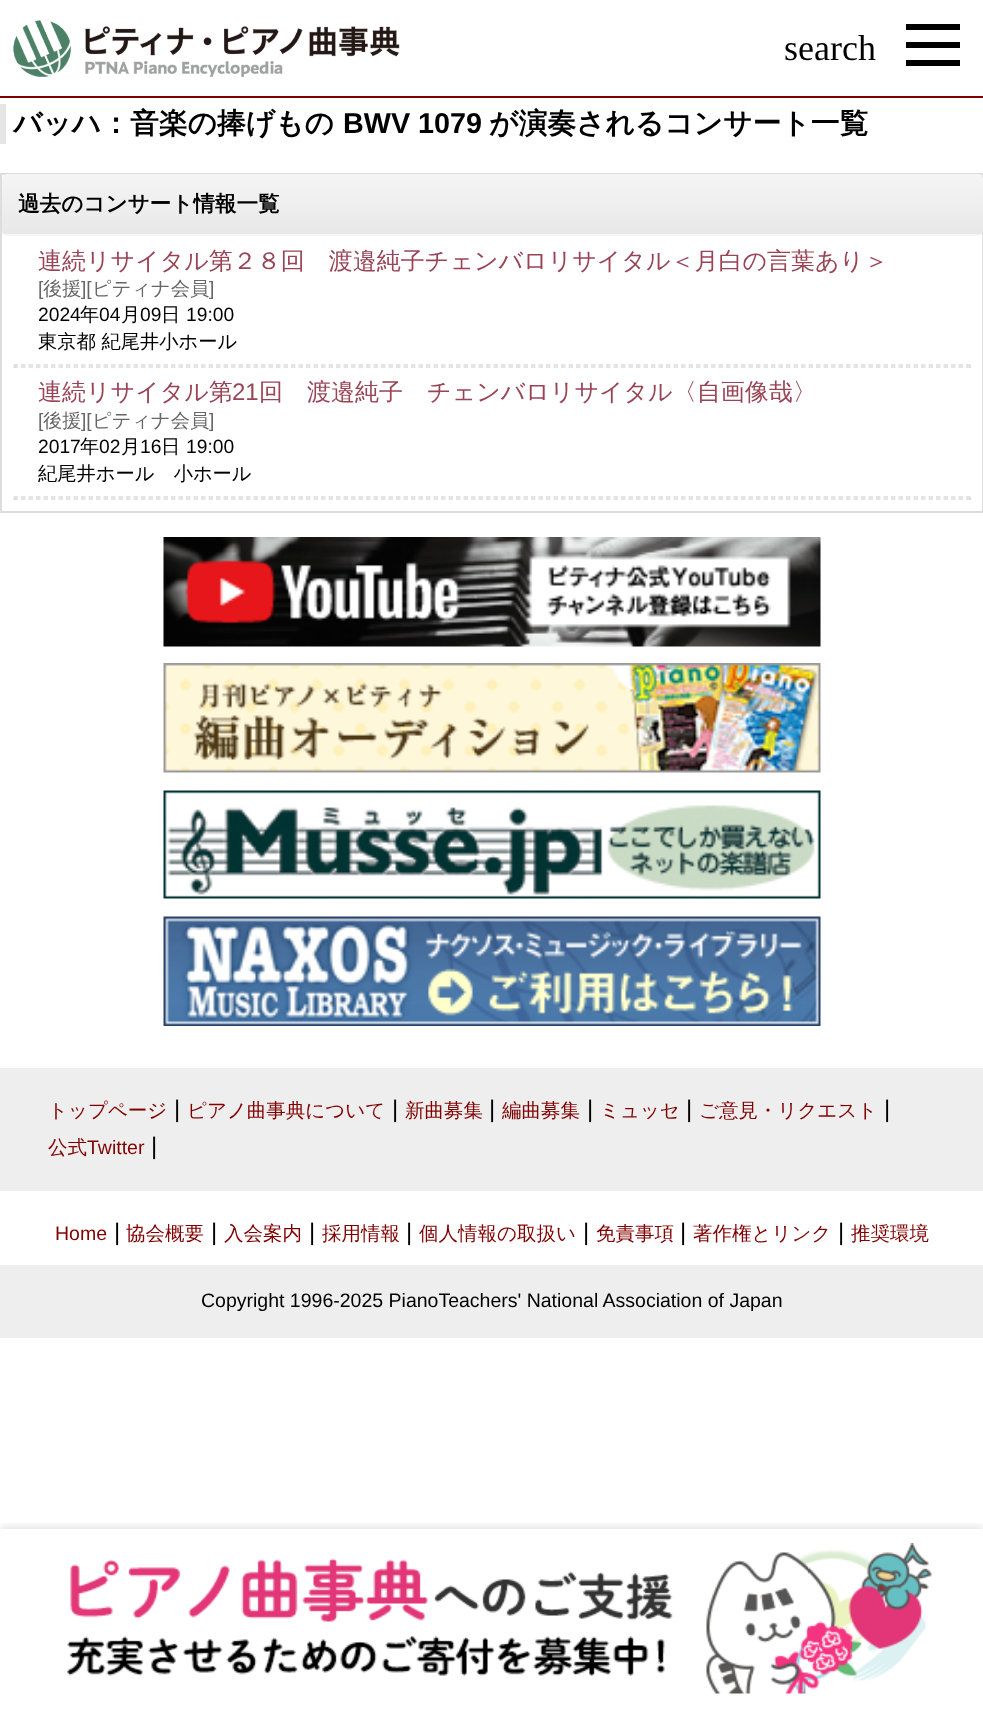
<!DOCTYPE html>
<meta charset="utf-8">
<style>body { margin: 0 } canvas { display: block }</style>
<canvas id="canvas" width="983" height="1714"></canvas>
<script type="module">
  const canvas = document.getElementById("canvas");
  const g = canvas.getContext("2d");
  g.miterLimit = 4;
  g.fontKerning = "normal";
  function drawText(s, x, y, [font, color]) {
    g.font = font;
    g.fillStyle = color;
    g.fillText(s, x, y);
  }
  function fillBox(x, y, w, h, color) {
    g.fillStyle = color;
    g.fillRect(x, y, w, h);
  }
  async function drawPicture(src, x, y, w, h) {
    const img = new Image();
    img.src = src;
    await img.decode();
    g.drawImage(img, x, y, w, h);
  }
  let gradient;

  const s1 = ["36px Liberation Serif", "#000000"];
  const s2 = ["bold 28.75px WenQuanYi Zen Hei", "#000000"];
  const s3 = ["bold 28.75px Liberation Sans", "#000000"];
  const s4 = ["bold 21.6px WenQuanYi Zen Hei", "#000000"];
  const s5 = ["500 24px WenQuanYi Zen Hei", "#994455"];
  const s6 = ["19.25px Liberation Sans", "#666666"];
  const s7 = ["500 19.25px WenQuanYi Zen Hei", "#666666"];
  const s8 = ["19.25px Liberation Sans", "#000000"];
  const s9 = ["500 19.25px WenQuanYi Zen Hei", "#000000"];
  const s10 = ["24px Liberation Sans", "#994455"];
  const s11 = ["500 19.5px WenQuanYi Zen Hei", "#800000"];
  const s12 = ["24px Liberation Sans", "#000000"];
  const s13 = ["19.5px Liberation Sans", "#800000"];
  const s14 = ["19.5px Liberation Sans", "#000000"];

  fillBox(0, 0, 983, 1714, "#FFFFFF");
  await drawPicture("pic1.png", 13, 20, 387, 57);
  drawText("search", 784, 60, s1);
  fillBox(0, 96, 983, 2, "#800000");
  fillBox(906, 24, 54, 6, "#000000");
  fillBox(906, 42, 54, 6, "#000000");
  fillBox(906, 60, 54, 6, "#000000");
  fillBox(0, 104, 6, 40, "#E5E5E5");
  drawText("バッハ：音楽の捧げもの", 13, 133, s2);
  drawText("BWV 1079", 343, 133, s3);
  drawText("が演奏されるコンサート一覧", 489, 133, s2);
  g.strokeStyle = "#DDDDDD";
  g.lineWidth = 2;
  g.strokeRect(1, 174, 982, 338);
  g.save();
  g.beginPath();
  g.roundRect(2, 174, 981, 62, 5);
  g.clip();
  gradient = g.createLinearGradient(492, 174, 492, 234);
  gradient.addColorStop(0, "#F5F5F5");
  gradient.addColorStop(1, "#E8E8E8");
  g.fillStyle = gradient;
  g.beginPath();
  g.roundRect(2, 174, 981, 60, [5, 5, 0, 0]);
  g.fill();
  gradient = g.createLinearGradient(492, 234, 492, 294);
  gradient.addColorStop(0, "#F5F5F5");
  gradient.addColorStop(1, "#E8E8E8");
  g.fillStyle = gradient;
  g.fillRect(2, 234, 981, 2);
  g.restore();
  drawText("過去のコンサート情報一覧", 18, 211, s4);
  drawText("連続リサイタル第２８回　渡邉純子チェンバロリサイタル＜月白の言葉あり＞", 38, 269, s5);
  drawText("[", 38, 295, s6);
  drawText("後援", 43, 295, s7);
  drawText("][", 81, 295, s6);
  drawText("ピティナ会員", 92, 295, s7);
  drawText("]", 209, 295, s6);
  drawText("2024", 38, 321, s8);
  drawText("年", 80, 321, s9);
  drawText("04", 99, 321, s8);
  drawText("月", 121, 321, s9);
  drawText("09", 140, 321, s8);
  drawText("日", 161, 321, s9);
  drawText("19:00", 186, 321, s8);
  drawText("東京都 紀尾井小ホール", 38, 348, s9);
  g.beginPath();
  g.moveTo(13.5, 365);
  g.lineTo(970.5, 365);
  g.lineWidth = 1.5;
  g.setLineDash([4.5, 3]);
  g.stroke();
  fillBox(969, 365, 2, 3, "#DDDDDD");
  g.beginPath();
  g.moveTo(13.5, 367);
  g.lineTo(970.5, 367);
  g.stroke();
  fillBox(14, 365, 2, 3, "#DDDDDD");
  drawText("連続リサイタル第", 38, 400, s5);
  drawText("21", 232, 400, s10);
  drawText("回　渡邉純子　チェンバロリサイタル〈自画像哉〉", 259, 400, s5);
  drawText("[", 38, 427, s6);
  drawText("後援", 43, 427, s7);
  drawText("][", 81, 427, s6);
  drawText("ピティナ会員", 92, 427, s7);
  drawText("]", 209, 427, s6);
  drawText("2017", 38, 453, s8);
  drawText("年", 80, 453, s9);
  drawText("02", 99, 453, s8);
  drawText("月", 121, 453, s9);
  drawText("16", 140, 453, s8);
  drawText("日", 161, 453, s9);
  drawText("19:00", 186, 453, s8);
  drawText("紀尾井ホール　小ホール", 38, 480, s9);
  g.beginPath();
  g.moveTo(13.5, 497);
  g.lineTo(970.5, 497);
  g.stroke();
  fillBox(969, 497, 2, 3, "#DDDDDD");
  g.beginPath();
  g.moveTo(13.5, 499);
  g.lineTo(970.5, 499);
  g.stroke();
  fillBox(14, 497, 2, 3, "#DDDDDD");
  await drawPicture("pic2.png", 163, 537, 658, 110);
  await drawPicture("pic3.png", 163, 663, 658, 110);
  await drawPicture("pic4.png", 163, 790, 658, 109);
  await drawPicture("pic5.png", 163, 916, 658, 110);
  fillBox(0, 1068, 983, 123, "#EEEEEE");
  drawText("トップページ", 48, 1117, s11);
  drawText("|", 174, 1117, s12);
  drawText("ピアノ曲事典について", 187, 1117, s11);
  drawText("|", 392, 1117, s12);
  drawText("新曲募集", 405, 1117, s11);
  drawText("|", 489, 1117, s12);
  drawText("編曲募集", 502, 1117, s11);
  drawText("|", 587, 1117, s12);
  drawText("ミュッセ", 600, 1117, s11);
  drawText("|", 686, 1117, s12);
  drawText("ご意見・リクエスト", 699, 1117, s11);
  drawText("|", 884, 1117, s12);
  drawText("公式", 48, 1154, s11);
  drawText("Twitter", 87, 1154, s13);
  drawText("|", 151, 1154, s12);
  drawText("Home", 55, 1240, s13);
  drawText("|", 114, 1240, s12);
  drawText("協会概要", 126, 1240, s11);
  drawText("|", 211, 1240, s12);
  drawText("入会案内", 224, 1240, s11);
  drawText("|", 309, 1240, s12);
  drawText("採用情報", 322, 1240, s11);
  drawText("|", 406, 1240, s12);
  drawText("個人情報の取扱い", 419, 1240, s11);
  drawText("|", 583, 1240, s12);
  drawText("免責事項", 596, 1240, s11);
  drawText("|", 680, 1240, s12);
  drawText("著作権とリンク", 693, 1240, s11);
  drawText("|", 838, 1240, s12);
  drawText("推奨環境", 851, 1240, s11);
  fillBox(0, 1265, 983, 73, "#EEEEEE");
  drawText("Copyright 1996-2025 PianoTeachers' National Association of Japan", 201, 1307, s14);
  g.save();
  g.beginPath();
  g.rect(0, 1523, 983, 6);
  g.clip();
  g.fillStyle = "rgba(0, 0, 0, 0.1)";
  g.filter = "blur(4px)";
  g.beginPath();
  g.rect(0, 1526, 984, 186);
  g.fill();
  g.filter = "none";
  g.restore();
  await drawPicture("pic6.png", 67, 1543, 865, 151);
</script>
